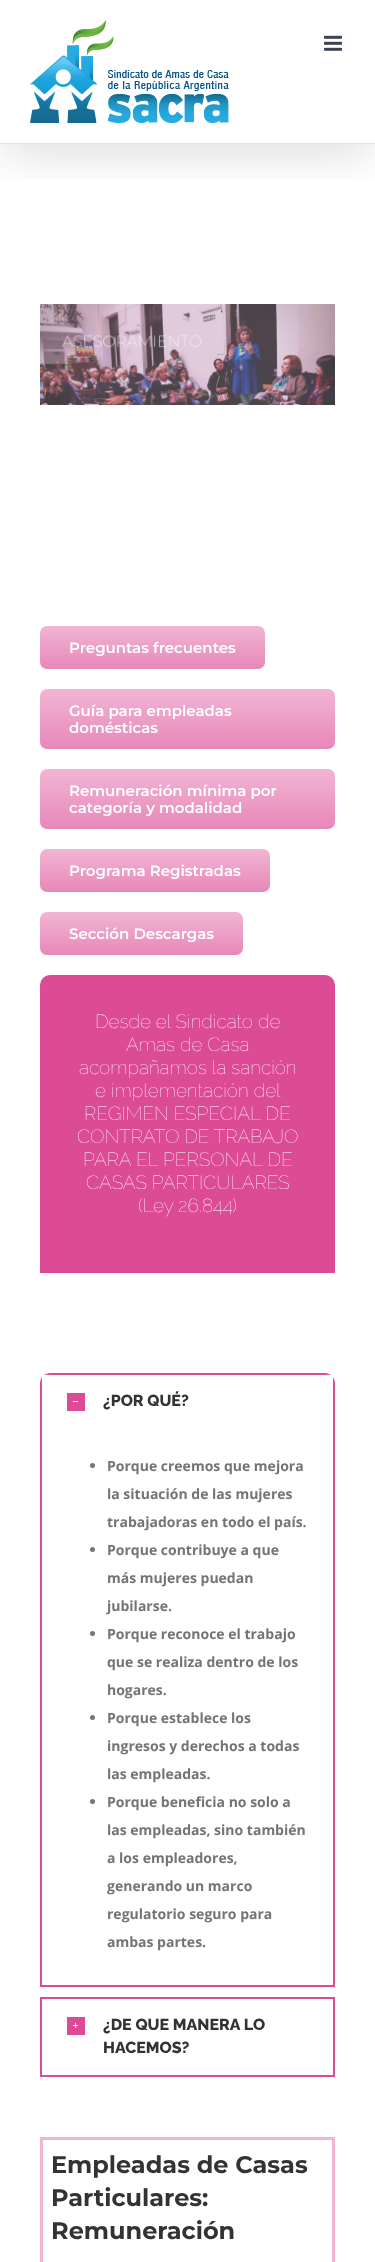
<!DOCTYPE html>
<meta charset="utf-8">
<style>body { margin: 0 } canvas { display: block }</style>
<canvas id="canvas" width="375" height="2262"></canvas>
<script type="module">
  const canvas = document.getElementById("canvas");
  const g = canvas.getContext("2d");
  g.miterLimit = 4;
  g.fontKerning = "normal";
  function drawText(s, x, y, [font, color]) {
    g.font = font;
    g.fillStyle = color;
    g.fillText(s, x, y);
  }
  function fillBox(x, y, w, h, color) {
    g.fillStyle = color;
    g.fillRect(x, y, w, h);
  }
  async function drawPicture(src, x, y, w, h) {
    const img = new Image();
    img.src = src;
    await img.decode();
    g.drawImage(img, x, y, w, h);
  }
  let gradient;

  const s1 = ["600 15px Montserrat", "#FFFFFF"];
  const s2 = ["100 19px Raleway", "#FFFFFF"];
  const s3 = ["800 16px Raleway", "#333333"];
  const s4 = ["bold 14px Open Sans", "#747474"];
  const s5 = ["bold 24px Montserrat", "#333333"];

  fillBox(0, 0, 375, 2262, "#FFFFFF");
  g.save();
  g.beginPath();
  g.rect(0, 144, 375, 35);
  g.clip();
  g.fillStyle = "rgba(0, 0, 0, 0.14)";
  g.filter = "blur(25px)";
  g.beginPath();
  g.rect(2, 12, 371, 140);
  g.fill();
  g.filter = "none";
  g.restore();
  fillBox(0, 143, 375, 1, "#E5E5E5");
  await drawPicture("pic1.png", 30, 20, 199, 103);
  await drawPicture("pic2.png", 324, 35, 18, 16);
  await drawPicture("pic3.png", 40, 304, 295, 101);
  gradient = g.createLinearGradient(153, 626, 153, 669);
  gradient.addColorStop(0, "#F1B6D4");
  gradient.addColorStop(1, "#E887B8");
  g.fillStyle = gradient;
  g.beginPath();
  g.roundRect(40, 626, 225, 43, 7);
  g.fill();
  drawText("Preguntas frecuentes", 69, 653, s1);
  gradient = g.createLinearGradient(188, 689, 188, 749);
  gradient.addColorStop(0, "#F1B6D4");
  gradient.addColorStop(1, "#E887B8");
  g.fillStyle = gradient;
  g.beginPath();
  g.roundRect(40, 689, 295, 60, 7);
  g.fill();
  drawText("Guía para empleadas", 69, 716, s1);
  drawText("domésticas", 69, 733, s1);
  gradient = g.createLinearGradient(188, 769, 188, 829);
  gradient.addColorStop(0, "#F1B6D4");
  gradient.addColorStop(1, "#E887B8");
  g.fillStyle = gradient;
  g.beginPath();
  g.roundRect(40, 769, 295, 60, 7);
  g.fill();
  drawText("Remuneración mínima por", 69, 796, s1);
  drawText("categoría y modalidad", 69, 813, s1);
  gradient = g.createLinearGradient(155, 849, 155, 892);
  gradient.addColorStop(0, "#F1B6D4");
  gradient.addColorStop(1, "#E887B8");
  g.fillStyle = gradient;
  g.beginPath();
  g.roundRect(40, 849, 230, 43, 7);
  g.fill();
  drawText("Programa Registradas", 69, 876, s1);
  gradient = g.createLinearGradient(142, 912, 142, 955);
  gradient.addColorStop(0, "#F1B6D4");
  gradient.addColorStop(1, "#E887B8");
  g.fillStyle = gradient;
  g.beginPath();
  g.roundRect(40, 912, 203, 43, 7);
  g.fill();
  drawText("Sección Descargas", 69, 939, s1);
  g.fillStyle = "#DC4B95";
  g.beginPath();
  g.roundRect(40, 975, 295, 298, [10, 10, 0, 0]);
  g.fill();
  drawText("Desde el Sindicato de", 95, 1028, s2);
  drawText("Amas de Casa", 126, 1051, s2);
  drawText("acompañamos la sanción", 79, 1074, s2);
  drawText("e implementación del", 95, 1097, s2);
  drawText("REGIMEN ESPECIAL DE", 84, 1120, s2);
  drawText("CONTRATO DE TRABAJO", 77, 1143, s2);
  drawText("PARA EL PERSONAL DE", 83, 1166, s2);
  drawText("CASAS PARTICULARES", 86, 1189, s2);
  drawText("(Ley 26.844)", 138, 1212, s2);
  g.fillStyle = "#DC4B95";
  g.beginPath();
  g.moveTo(40, 1383);
  g.lineTo(40, 1987);
  g.lineTo(335, 1987);
  g.lineTo(335, 1383);
  g.bezierCurveTo(335, 1381, 334, 1379, 333, 1377);
  g.lineTo(333, 1985);
  g.lineTo(42, 1985);
  g.lineTo(42, 1377);
  g.bezierCurveTo(41, 1379, 40, 1381, 40, 1383);
  g.closePath();
  g.moveTo(50, 1373);
  g.bezierCurveTo(48, 1373, 46, 1374, 44, 1375);
  g.lineTo(331, 1375);
  g.bezierCurveTo(329, 1374, 327, 1373, 325, 1373);
  g.closePath();
  g.fill("evenodd");
  fillBox(67, 1393, 18, 18, "#DC4B95");
  await drawPicture("pic4.png", 72, 1401, 7, 1);
  drawText("¿POR QUÉ?", 103, 1406, s3);
  g.fillStyle = "#747474";
  g.beginPath();
  g.arc(92.5, 1465.5, 2.5, 0, Math.PI * 2);
  g.fill();
  drawText("Porque creemos que mejora", 107, 1471, s4);
  drawText("la situación de las mujeres", 107, 1499, s4);
  drawText("trabajadoras en todo el país.", 107, 1527, s4);
  g.beginPath();
  g.arc(92.5, 1549.5, 2.5, 0, Math.PI * 2);
  g.fill();
  drawText("Porque contribuye a que", 107, 1555, s4);
  drawText("más mujeres puedan", 107, 1583, s4);
  drawText("jubilarse.", 107, 1611, s4);
  g.beginPath();
  g.arc(92.5, 1633.5, 2.5, 0, Math.PI * 2);
  g.fill();
  drawText("Porque reconoce el trabajo", 107, 1639, s4);
  drawText("que se realiza dentro de los", 107, 1667, s4);
  drawText("hogares.", 107, 1695, s4);
  g.beginPath();
  g.arc(92.5, 1717.5, 2.5, 0, Math.PI * 2);
  g.fill();
  drawText("Porque establece los", 107, 1723, s4);
  drawText("ingresos y derechos a todas", 107, 1751, s4);
  drawText("las empleadas.", 107, 1779, s4);
  g.beginPath();
  g.arc(92.5, 1801.5, 2.5, 0, Math.PI * 2);
  g.fill();
  drawText("Porque beneficia no solo a", 107, 1807, s4);
  drawText("las empleadas, sino también", 107, 1835, s4);
  drawText("a los empleadores,", 107, 1863, s4);
  drawText("generando un marco", 107, 1891, s4);
  drawText("regulatorio seguro para", 107, 1919, s4);
  drawText("ambas partes.", 107, 1947, s4);
  g.strokeStyle = "#DC4B95";
  g.lineWidth = 2;
  g.strokeRect(41, 1998, 293, 78);
  fillBox(67, 2017, 18, 18, "#DC4B95");
  await drawPicture("pic5.png", 72, 2022, 7, 7);
  drawText("¿DE QUE MANERA LO", 103, 2030, s3);
  drawText("HACEMOS?", 103, 2053, s3);
  g.strokeStyle = "#F1B6D4";
  g.lineWidth = 3;
  g.strokeRect(41.5, 2138.5, 292, 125);
  drawText("Empleadas de Casas", 51, 2173, s5);
  drawText("Particulares:", 51, 2206, s5);
  drawText("Remuneración", 51, 2239, s5);
</script>
